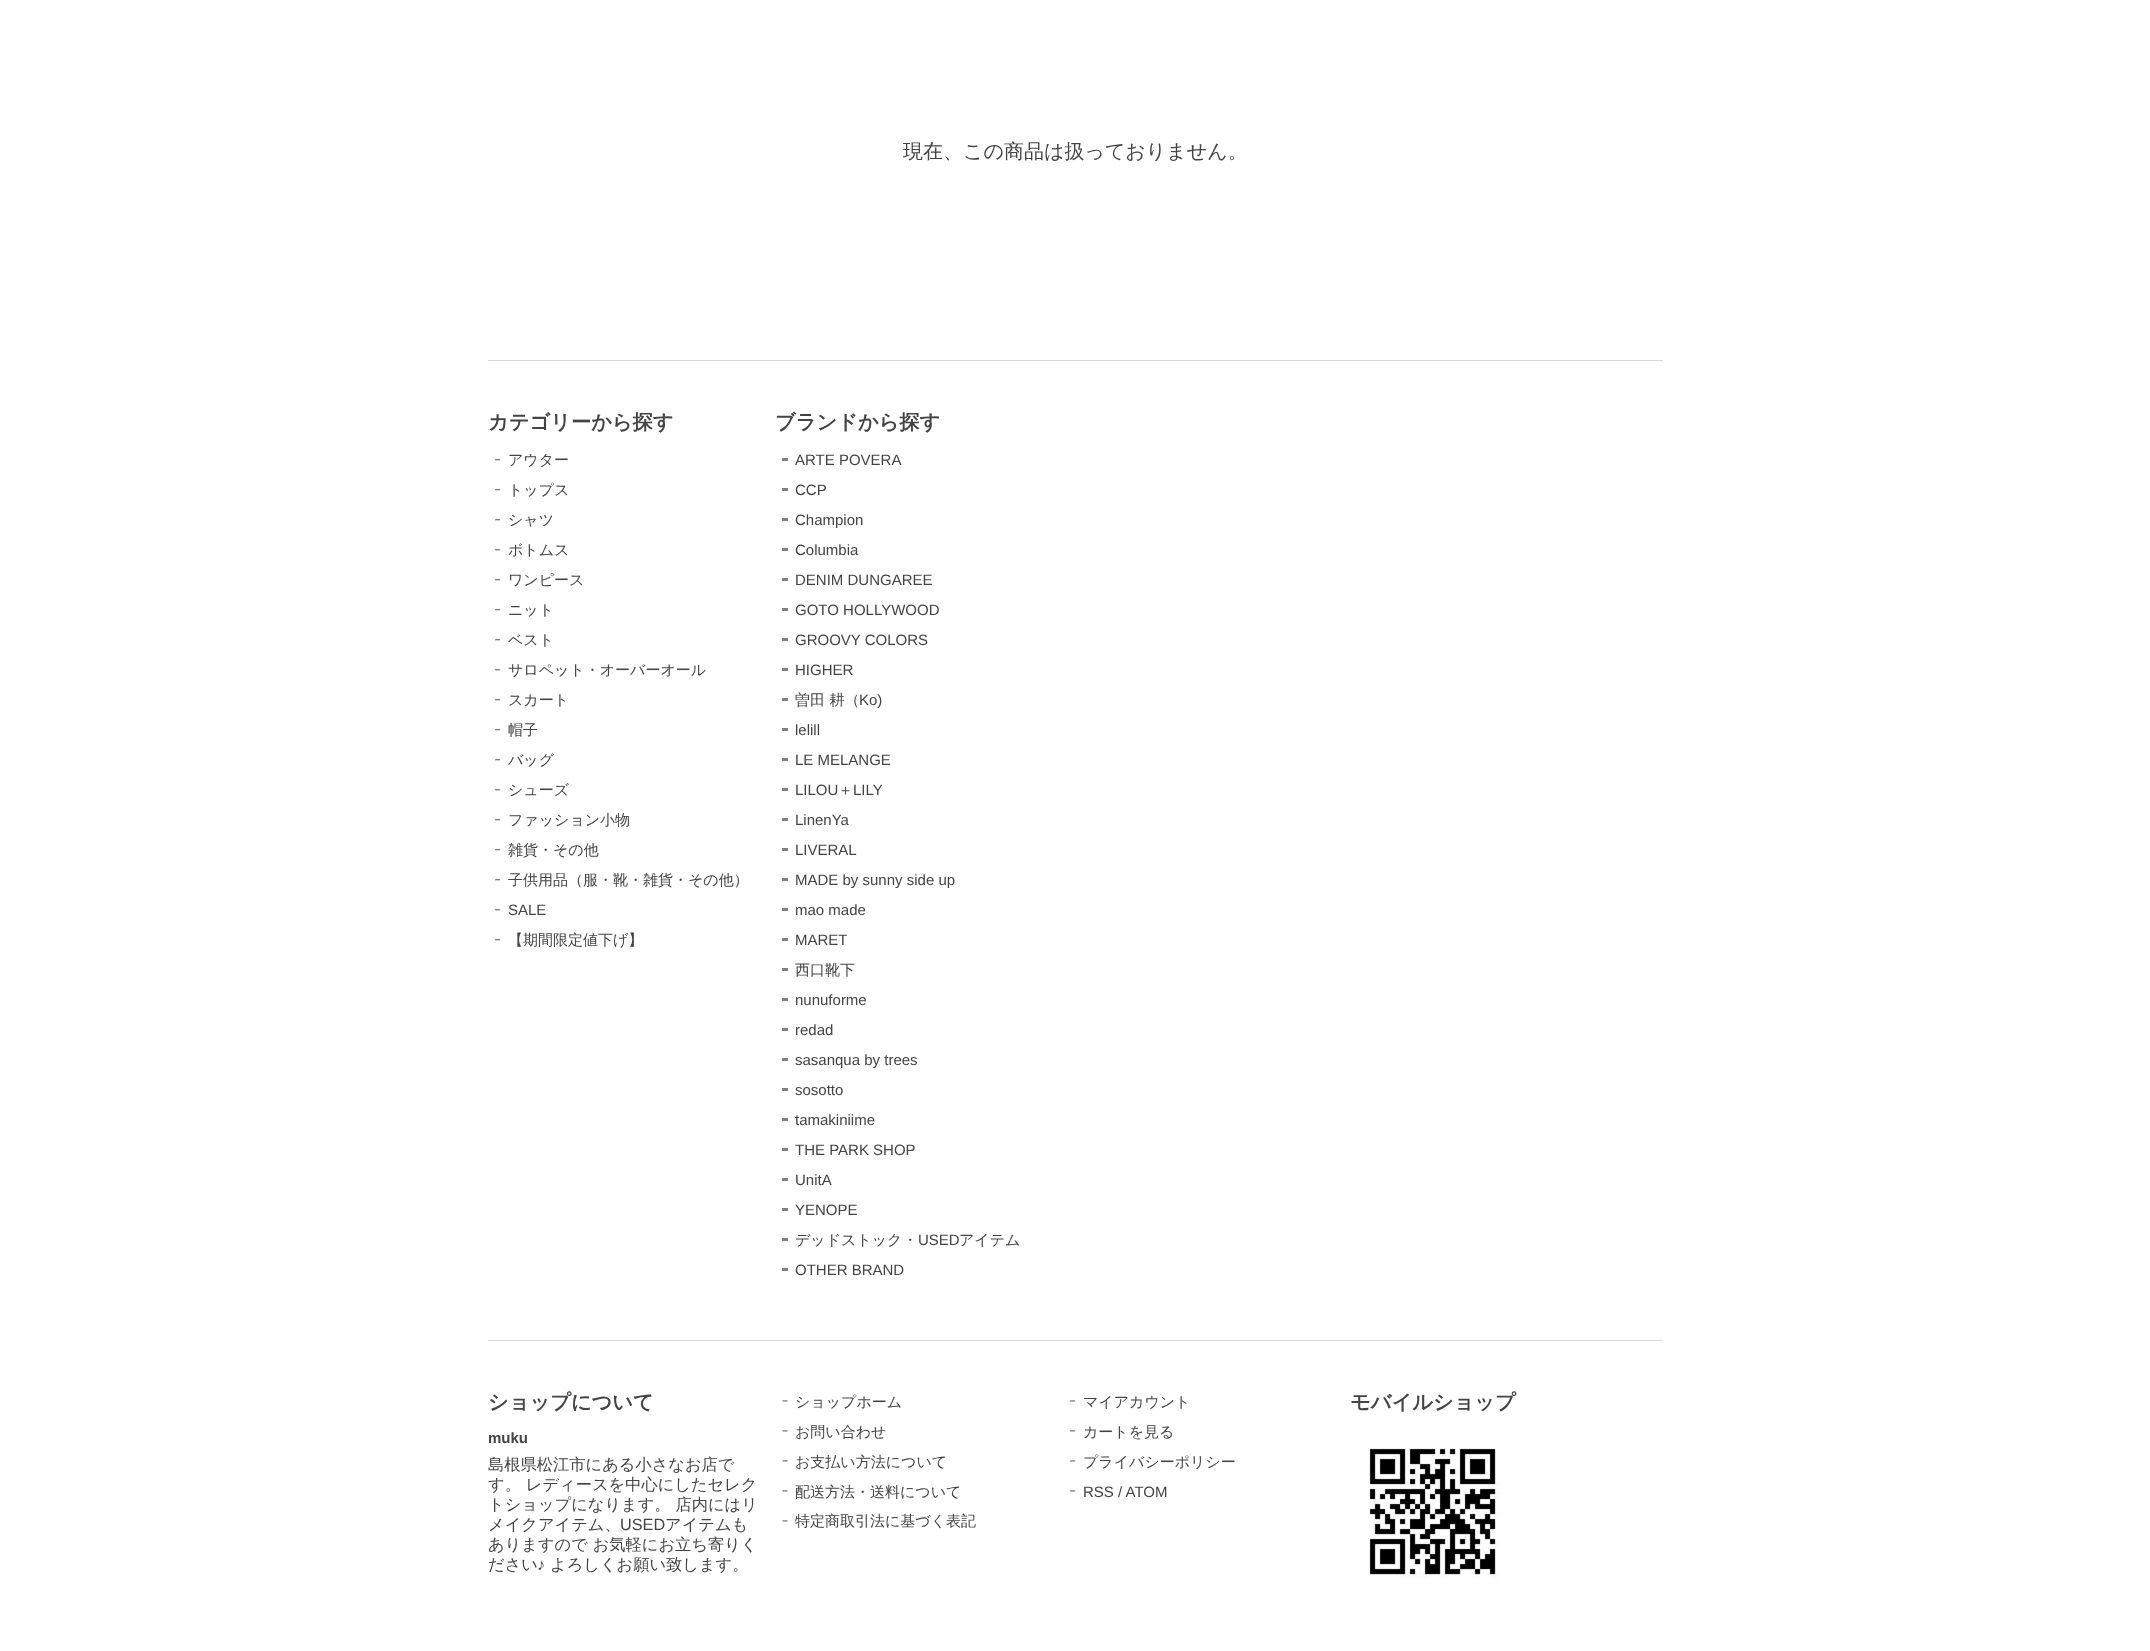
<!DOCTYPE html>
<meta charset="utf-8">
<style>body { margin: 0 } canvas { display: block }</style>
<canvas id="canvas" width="2150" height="1651"></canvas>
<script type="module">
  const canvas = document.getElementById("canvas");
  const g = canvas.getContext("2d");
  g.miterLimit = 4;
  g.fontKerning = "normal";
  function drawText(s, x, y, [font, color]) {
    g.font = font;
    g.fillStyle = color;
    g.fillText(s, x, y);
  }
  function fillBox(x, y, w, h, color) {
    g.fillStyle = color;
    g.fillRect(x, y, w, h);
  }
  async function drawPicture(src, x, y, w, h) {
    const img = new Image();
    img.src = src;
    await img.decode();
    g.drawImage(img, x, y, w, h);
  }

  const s1 = ["500 20px WenQuanYi Zen Hei", "#444444"];
  const s2 = ["bold 20.25px WenQuanYi Zen Hei", "#444444"];
  const s3 = ["500 15px WenQuanYi Zen Hei", "#444444"];
  const s4 = ["15px Liberation Sans", "#444444"];
  const s5 = ["bold 15px Liberation Sans", "#444444"];
  const s6 = ["500 16.25px WenQuanYi Zen Hei", "#444444"];
  const s7 = ["16.25px Liberation Sans", "#444444"];

  fillBox(0, 0, 2150, 1651, "#FFFFFF");
  drawText("現在、この商品は扱っておりません。", 903, 158, s1);
  fillBox(488, 360, 1175, 1, "#D8D8D8");
  drawText("カテゴリーから探す", 488, 429, s2);
  await drawPicture("pic1.png", 494, 458, 7, 3);
  drawText("アウター", 508, 465, s3);
  await drawPicture("pic1.png", 494, 488, 7, 3);
  drawText("トップス", 508, 495, s3);
  await drawPicture("pic1.png", 494, 518, 7, 3);
  drawText("シャツ", 508, 525, s3);
  await drawPicture("pic1.png", 494, 548, 7, 3);
  drawText("ボトムス", 508, 555, s3);
  await drawPicture("pic1.png", 494, 578, 7, 3);
  drawText("ワンピース", 508, 585, s3);
  await drawPicture("pic1.png", 494, 608, 7, 3);
  drawText("ニット", 508, 615, s3);
  await drawPicture("pic1.png", 494, 638, 7, 3);
  drawText("ベスト", 508, 645, s3);
  await drawPicture("pic1.png", 494, 668, 7, 3);
  drawText("サロペット・オーバーオール", 508, 675, s3);
  await drawPicture("pic1.png", 494, 698, 7, 3);
  drawText("スカート", 508, 705, s3);
  await drawPicture("pic1.png", 494, 728, 7, 3);
  drawText("帽子", 508, 735, s3);
  await drawPicture("pic1.png", 494, 758, 7, 3);
  drawText("バッグ", 508, 765, s3);
  await drawPicture("pic1.png", 494, 788, 7, 3);
  drawText("シューズ", 508, 795, s3);
  await drawPicture("pic1.png", 494, 818, 7, 3);
  drawText("ファッション小物", 508, 825, s3);
  await drawPicture("pic1.png", 494, 848, 7, 3);
  drawText("雑貨・その他", 508, 855, s3);
  await drawPicture("pic1.png", 494, 878, 7, 3);
  drawText("子供用品（服・靴・雑貨・その他）", 508, 885, s3);
  await drawPicture("pic1.png", 494, 908, 7, 3);
  drawText("SALE", 508, 915, s4);
  await drawPicture("pic1.png", 494, 938, 7, 3);
  drawText("【期間限定値下げ】", 508, 945, s3);
  drawText("ブランドから探す", 775, 429, s2);
  fillBox(782, 458, 6, 3, "#808080");
  drawText("ARTE POVERA", 795, 465, s4);
  fillBox(782, 488, 6, 3, "#808080");
  drawText("CCP", 795, 495, s4);
  fillBox(782, 518, 6, 3, "#808080");
  drawText("Champion", 795, 525, s4);
  fillBox(782, 548, 6, 3, "#808080");
  drawText("Columbia", 795, 555, s4);
  fillBox(782, 578, 6, 3, "#808080");
  drawText("DENIM DUNGAREE", 795, 585, s4);
  fillBox(782, 608, 6, 3, "#808080");
  drawText("GOTO HOLLYWOOD", 795, 615, s4);
  fillBox(782, 638, 6, 3, "#808080");
  drawText("GROOVY COLORS", 795, 645, s4);
  fillBox(782, 668, 6, 3, "#808080");
  drawText("HIGHER", 795, 675, s4);
  fillBox(782, 698, 6, 3, "#808080");
  drawText("曽田 耕（", 795, 705, s3);
  drawText("Ko)", 859, 705, s4);
  fillBox(782, 728, 6, 3, "#808080");
  drawText("lelill", 795, 735, s4);
  fillBox(782, 758, 6, 3, "#808080");
  drawText("LE MELANGE", 795, 765, s4);
  fillBox(782, 788, 6, 3, "#808080");
  drawText("LILOU", 795, 795, s4);
  drawText("＋", 838, 795, s3);
  drawText("LILY", 853, 795, s4);
  fillBox(782, 818, 6, 3, "#808080");
  drawText("LinenYa", 795, 825, s4);
  fillBox(782, 848, 6, 3, "#808080");
  drawText("LIVERAL", 795, 855, s4);
  fillBox(782, 878, 6, 3, "#808080");
  drawText("MADE by sunny side up", 795, 885, s4);
  fillBox(782, 908, 6, 3, "#808080");
  drawText("mao made", 795, 915, s4);
  fillBox(782, 938, 6, 3, "#808080");
  drawText("MARET", 795, 945, s4);
  fillBox(782, 968, 6, 3, "#808080");
  drawText("西口靴下", 795, 975, s3);
  fillBox(782, 998, 6, 3, "#808080");
  drawText("nunuforme", 795, 1005, s4);
  fillBox(782, 1028, 6, 3, "#808080");
  drawText("redad", 795, 1035, s4);
  fillBox(782, 1058, 6, 3, "#808080");
  drawText("sasanqua by trees", 795, 1065, s4);
  fillBox(782, 1088, 6, 3, "#808080");
  drawText("sosotto", 795, 1095, s4);
  fillBox(782, 1118, 6, 3, "#808080");
  drawText("tamakiniime", 795, 1125, s4);
  fillBox(782, 1148, 6, 3, "#808080");
  drawText("THE PARK SHOP", 795, 1155, s4);
  fillBox(782, 1178, 6, 3, "#808080");
  drawText("UnitA", 795, 1185, s4);
  fillBox(782, 1208, 6, 3, "#808080");
  drawText("YENOPE", 795, 1215, s4);
  fillBox(782, 1238, 6, 3, "#808080");
  drawText("デッドストック・", 795, 1245, s3);
  drawText("USED", 918, 1245, s4);
  drawText("アイテム", 959, 1245, s3);
  fillBox(782, 1268, 6, 3, "#808080");
  drawText("OTHER BRAND", 795, 1275, s4);
  fillBox(488, 1340, 1175, 1, "#D8D8D8");
  drawText("ショップについて", 488, 1409, s2);
  drawText("muku", 488, 1443, s5);
  drawText("島根県松江市にある小さなお店で", 488, 1470, s6);
  drawText("す。 レディースを中心にしたセレク", 488, 1490, s6);
  drawText("トショップになります。 店内にはリ", 488, 1510, s6);
  drawText("メイクアイテム、", 488, 1530, s6);
  drawText("USED", 620, 1530, s7);
  drawText("アイテムも", 665, 1530, s6);
  drawText("ありますので お気軽にお立ち寄りく", 488, 1550, s6);
  drawText("ださい", 488, 1570, s6);
  drawText("♪", 537, 1570, s7);
  drawText("よろしくお願い致します。", 550, 1570, s6);
  await drawPicture("pic2.png", 782, 1400, 6, 2);
  drawText("ショップホーム", 795, 1407, s3);
  await drawPicture("pic2.png", 782, 1430, 6, 2);
  drawText("お問い合わせ", 795, 1437, s3);
  await drawPicture("pic2.png", 782, 1460, 6, 2);
  drawText("お支払い方法について", 795, 1467, s3);
  await drawPicture("pic2.png", 782, 1490, 6, 2);
  drawText("配送方法・送料について", 795, 1497, s3);
  await drawPicture("pic2.png", 782, 1520, 6, 2);
  drawText("特定商取引法に基づく表記", 795, 1526, s3);
  await drawPicture("pic3.png", 1069, 1400, 7, 2);
  drawText("マイアカウント", 1083, 1407, s3);
  await drawPicture("pic3.png", 1069, 1430, 7, 2);
  drawText("カートを見る", 1083, 1437, s3);
  await drawPicture("pic3.png", 1069, 1460, 7, 2);
  drawText("プライバシーポリシー", 1083, 1467, s3);
  await drawPicture("pic3.png", 1069, 1490, 7, 2);
  drawText("RSS / ATOM", 1083, 1497, s4);
  drawText("モバイルショップ", 1350, 1409, s2);
  await drawPicture("pic4.png", 1369, 1448, 131, 131);
</script>
